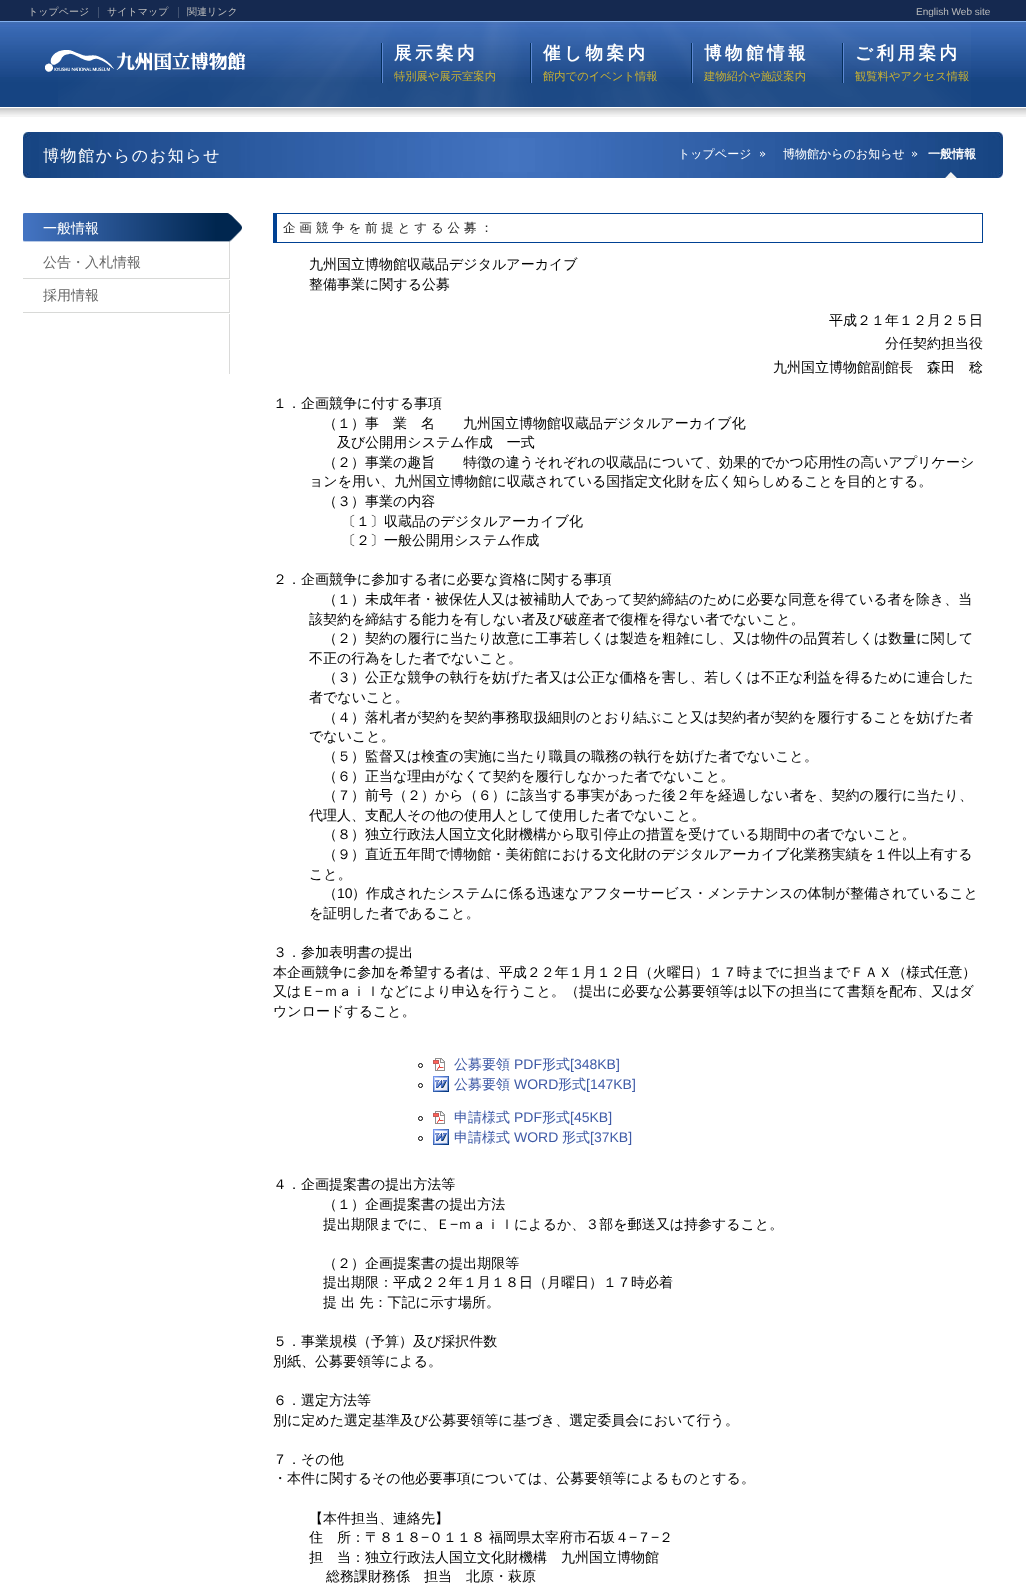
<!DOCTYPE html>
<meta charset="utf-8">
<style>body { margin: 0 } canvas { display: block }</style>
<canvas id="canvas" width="1026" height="1591"></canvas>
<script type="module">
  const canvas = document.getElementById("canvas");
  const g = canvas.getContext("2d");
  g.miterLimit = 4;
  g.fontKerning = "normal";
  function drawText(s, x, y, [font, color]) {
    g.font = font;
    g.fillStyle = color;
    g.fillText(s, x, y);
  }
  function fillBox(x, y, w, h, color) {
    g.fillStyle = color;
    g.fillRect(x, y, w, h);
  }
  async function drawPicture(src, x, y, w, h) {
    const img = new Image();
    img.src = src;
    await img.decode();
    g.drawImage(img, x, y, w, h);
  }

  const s1 = ["500 10px WenQuanYi Zen Hei", "#BCBCBC"];
  const s2 = ["10px Liberation Sans", "#BCBCBC"];
  const s3 = ["bold 17.5px WenQuanYi Zen Hei", "#FFFFFF"];
  const s4 = ["500 11.3px WenQuanYi Zen Hei", "#C5AF34"];
  const s5 = ["500 16px WenQuanYi Zen Hei", "#FFFFFF"];
  const s6 = ["500 12px WenQuanYi Zen Hei", "#FFFFFF"];
  const s7 = ["bold 12px WenQuanYi Zen Hei", "#FFFFFF"];
  const s8 = ["500 14px WenQuanYi Zen Hei", "#FFFFFF"];
  const s9 = ["500 14px WenQuanYi Zen Hei", "#666666"];
  const s10 = ["500 12.6px WenQuanYi Zen Hei", "#262626"];
  const s11 = ["500 14px WenQuanYi Zen Hei", "#000000"];
  const s12 = ["14px Liberation Sans", "#000000"];
  const s13 = ["500 14px WenQuanYi Zen Hei", "#3E5AA6"];
  const s14 = ["14px Liberation Sans", "#3E5AA6"];

  fillBox(0, 0, 1026, 1591, "#FFFFFF");
  fillBox(0, 0, 1026, 21, "#152950");
  drawText("トップページ", 28, 15, s1);
  fillBox(98, 7, 1, 11, "#415271");
  drawText("サイトマップ", 107, 15, s1);
  fillBox(178, 7, 1, 11, "#415271");
  drawText("関連リンク", 187, 15, s1);
  drawText("English Web site", 916, 15, s2);
  await drawPicture("pic1.png", 0, 21, 1026, 86);
  await drawPicture("pic2.png", 58, 21, 913, 86);
  await drawPicture("pic3.png", 45, 50, 200, 22);
  await drawPicture("pic4.png", 381, 43, 2, 40);
  g.letterSpacing = "3.5px";
  drawText("展示案内", 394, 59, s3);
  g.letterSpacing = "0px";
  drawText("特別展や展示室案内", 394, 80, s4);
  await drawPicture("pic4.png", 530, 43, 2, 40);
  g.letterSpacing = "3.5px";
  drawText("催し物案内", 543, 59, s3);
  g.letterSpacing = "0px";
  drawText("館内でのイベント情報", 543, 80, s4);
  await drawPicture("pic4.png", 691, 43, 2, 40);
  g.letterSpacing = "3.5px";
  drawText("博物館情報", 704, 59, s3);
  g.letterSpacing = "0px";
  drawText("建物紹介や施設案内", 704, 80, s4);
  await drawPicture("pic4.png", 842, 43, 2, 40);
  g.letterSpacing = "3.5px";
  drawText("ご利用案内", 855, 59, s3);
  g.letterSpacing = "0px";
  drawText("観覧料やアクセス情報", 855, 80, s4);
  await drawPicture("pic5.png", 0, 108, 1026, 9);
  await drawPicture("pic6.png", 23, 138, 980, 34);
  await drawPicture("pic7.png", 23, 132, 980, 6);
  await drawPicture("pic8.png", 23, 172, 980, 6);
  g.letterSpacing = "1.6px";
  drawText("博物館からのお知らせ", 43, 161, s5);
  g.letterSpacing = "0px";
  drawText("トップページ", 678, 158, s6);
  await drawPicture("pic9.png", 760, 151, 6, 6);
  drawText("博物館からのお知らせ", 783, 158, s6);
  await drawPicture("pic10.png", 912, 151, 6, 6);
  drawText("一般情報", 928, 158, s7);
  await drawPicture("pic11.png", 945, 172, 12, 6);
  fillBox(229, 241, 1, 133, "#DADAD9");
  await drawPicture("pic12.png", 23, 213, 219, 29);
  drawText("一般情報", 43, 233, s8);
  await drawPicture("pic13.png", 23, 278, 207, 2);
  drawText("公告・入札情報", 43, 267, s9);
  await drawPicture("pic13.png", 23, 312, 207, 2);
  drawText("採用情報", 43, 300, s9);
  fillBox(273, 213, 710, 1, "#004193");
  fillBox(982, 213, 1, 30, "#004193");
  fillBox(273, 242, 710, 1, "#004193");
  fillBox(273, 213, 4, 30, "#004193");
  g.letterSpacing = "3.75px";
  drawText("企画競争を前提とする公募：", 283, 232, s10);
  g.letterSpacing = "0px";
  drawText("九州国立博物館収蔵品デジタルアーカイブ", 309, 269, s11);
  drawText("整備事業に関する公募", 309, 289, s11);
  drawText("平成２１年１２月２５日", 829, 325, s11);
  drawText("分任契約担当役", 885, 348, s11);
  drawText("九州国立博物館副館長　森田　稔", 773, 372, s11);
  drawText("１．企画競争に付する事項", 273, 408, s11);
  drawText("（１）事　業　名　　九州国立博物館収蔵品デジタルアーカイブ化", 323, 428, s11);
  drawText("及び公開用システム作成　一式", 337, 447, s11);
  drawText("（２）事業の趣旨　　特徴の違うそれぞれの収蔵品について、効果的でかつ応用性の高いアプリケーシ", 323, 467, s11);
  drawText("ョンを用い、九州国立博物館に収蔵されている国指定文化財を広く知らしめることを目的とする。", 309, 486, s11);
  drawText("（３）事業の内容", 323, 506, s11);
  drawText("〔１〕収蔵品のデジタルアーカイブ化", 342, 526, s11);
  drawText("〔２〕一般公開用システム作成", 342, 545, s11);
  drawText("２．企画競争に参加する者に必要な資格に関する事項", 273, 584, s11);
  drawText("（１）未成年者・被保佐人又は被補助人であって契約締結のために必要な同意を得ている者を除き、当", 323, 604, s11);
  drawText("該契約を締結する能力を有しない者及び破産者で復権を得ない者でないこと。", 309, 624, s11);
  drawText("（２）契約の履行に当たり故意に工事若しくは製造を粗雑にし、又は物件の品質若しくは数量に関して", 323, 643, s11);
  drawText("不正の行為をした者でないこと。", 309, 663, s11);
  drawText("（３）公正な競争の執行を妨げた者又は公正な価格を害し、若しくは不正な利益を得るために連合した", 323, 682, s11);
  drawText("者でないこと。", 309, 702, s11);
  drawText("（４）落札者が契約を契約事務取扱細則のとおり結ぶこと又は契約者が契約を履行することを妨げた者", 323, 722, s11);
  drawText("でないこと。", 309, 741, s11);
  drawText("（５）監督又は検査の実施に当たり職員の職務の執行を妨げた者でないこと。", 323, 761, s11);
  drawText("（６）正当な理由がなくて契約を履行しなかった者でないこと。", 323, 781, s11);
  drawText("（７）前号（２）から（６）に該当する事実があった後２年を経過しない者を、契約の履行に当たり、", 323, 800, s11);
  drawText("代理人、支配人その他の使用人として使用した者でないこと。", 309, 820, s11);
  drawText("（８）独立行政法人国立文化財機構から取引停止の措置を受けている期間中の者でないこと。", 323, 839, s11);
  drawText("（９）直近五年間で博物館・美術館における文化財のデジタルアーカイブ化業務実績を１件以上有する", 323, 859, s11);
  drawText("こと。", 309, 879, s11);
  drawText("（", 323, 898, s11);
  drawText("10", 337, 898, s12);
  drawText("）作成されたシステムに係る迅速なアフターサービス・メンテナンスの体制が整備されていること", 352, 898, s11);
  drawText("を証明した者であること。", 309, 918, s11);
  drawText("３．参加表明書の提出", 273, 957, s11);
  drawText("本企画競争に参加を希望する者は、平成２２年１月１２日（火曜日）１７時までに担当までＦＡＸ（様式任意）", 273, 977, s11);
  drawText("又はＥ", 273, 996, s11);
  drawText("−", 315, 996, s12);
  drawText("ｍａｉｌなどにより申込を行うこと。（提出に必要な公募要領等は以下の担当にて書類を配布、又はダ", 324, 996, s11);
  drawText("ウンロードすること。", 273, 1016, s11);
  g.beginPath();
  g.arc(420.5, 1065.5, 2, 0, Math.PI * 2);
  g.strokeStyle = "#000000";
  g.stroke();
  await drawPicture("pic14.png", 433, 1058, 12, 13);
  drawText("公募要領", 454, 1069, s13);
  drawText("PDF", 514, 1069, s14);
  drawText("形式", 542, 1069, s13);
  drawText("[348KB]", 570, 1069, s14);
  g.beginPath();
  g.arc(420.5, 1085.5, 2, 0, Math.PI * 2);
  g.stroke();
  await drawPicture("pic15.png", 433, 1076, 16, 16);
  drawText("公募要領", 454, 1089, s13);
  drawText("WORD", 514, 1089, s14);
  drawText("形式", 558, 1089, s13);
  drawText("[147KB]", 586, 1089, s14);
  g.beginPath();
  g.arc(420.5, 1118.5, 2, 0, Math.PI * 2);
  g.stroke();
  await drawPicture("pic14.png", 433, 1111, 12, 13);
  drawText("申請様式", 454, 1122, s13);
  drawText("PDF", 514, 1122, s14);
  drawText("形式", 542, 1122, s13);
  drawText("[45KB]", 570, 1122, s14);
  g.beginPath();
  g.arc(420.5, 1138.5, 2, 0, Math.PI * 2);
  g.stroke();
  await drawPicture("pic15.png", 433, 1129, 16, 16);
  drawText("申請様式", 454, 1142, s13);
  drawText("WORD", 514, 1142, s14);
  drawText("形式", 562, 1142, s13);
  drawText("[37KB]", 590, 1142, s14);
  drawText("４．企画提案書の提出方法等", 273, 1189, s11);
  drawText("（１）企画提案書の提出方法", 323, 1209, s11);
  drawText("提出期限までに、Ｅ", 323, 1229, s11);
  drawText("−", 450, 1229, s12);
  drawText("ｍａｉｌによるか、３部を郵送又は持参すること。", 458, 1229, s11);
  drawText("（２）企画提案書の提出期限等", 323, 1268, s11);
  drawText("提出期限：平成２２年１月１８日（月曜日）１７時必着", 323, 1287, s11);
  drawText("提 出 先：下記に示す場所。", 323, 1307, s11);
  drawText("５．事業規模（予算）及び採択件数", 273, 1346, s11);
  drawText("別紙、公募要領等による。", 273, 1366, s11);
  drawText("６．選定方法等", 273, 1405, s11);
  drawText("別に定めた選定基準及び公募要領等に基づき、選定委員会において行う。", 273, 1425, s11);
  drawText("７．その他", 273, 1464, s11);
  drawText("・本件に関するその他必要事項については、公募要領等によるものとする。", 273, 1483, s11);
  drawText("【本件担当、連絡先】", 309, 1523, s11);
  drawText("住　所：〒８１８", 309, 1542, s11);
  drawText("−", 421, 1542, s12);
  drawText("０１１８", 429, 1542, s11);
  drawText("福岡県太宰府市石坂４", 489, 1542, s11);
  drawText("−", 629, 1542, s12);
  drawText("７", 637, 1542, s11);
  drawText("−", 651, 1542, s12);
  drawText("２", 659, 1542, s11);
  drawText("担　当：独立行政法人国立文化財機構　九州国立博物館", 309, 1562, s11);
  drawText("総務課財務係　担当　北原・萩原", 326, 1581, s11);
</script>
